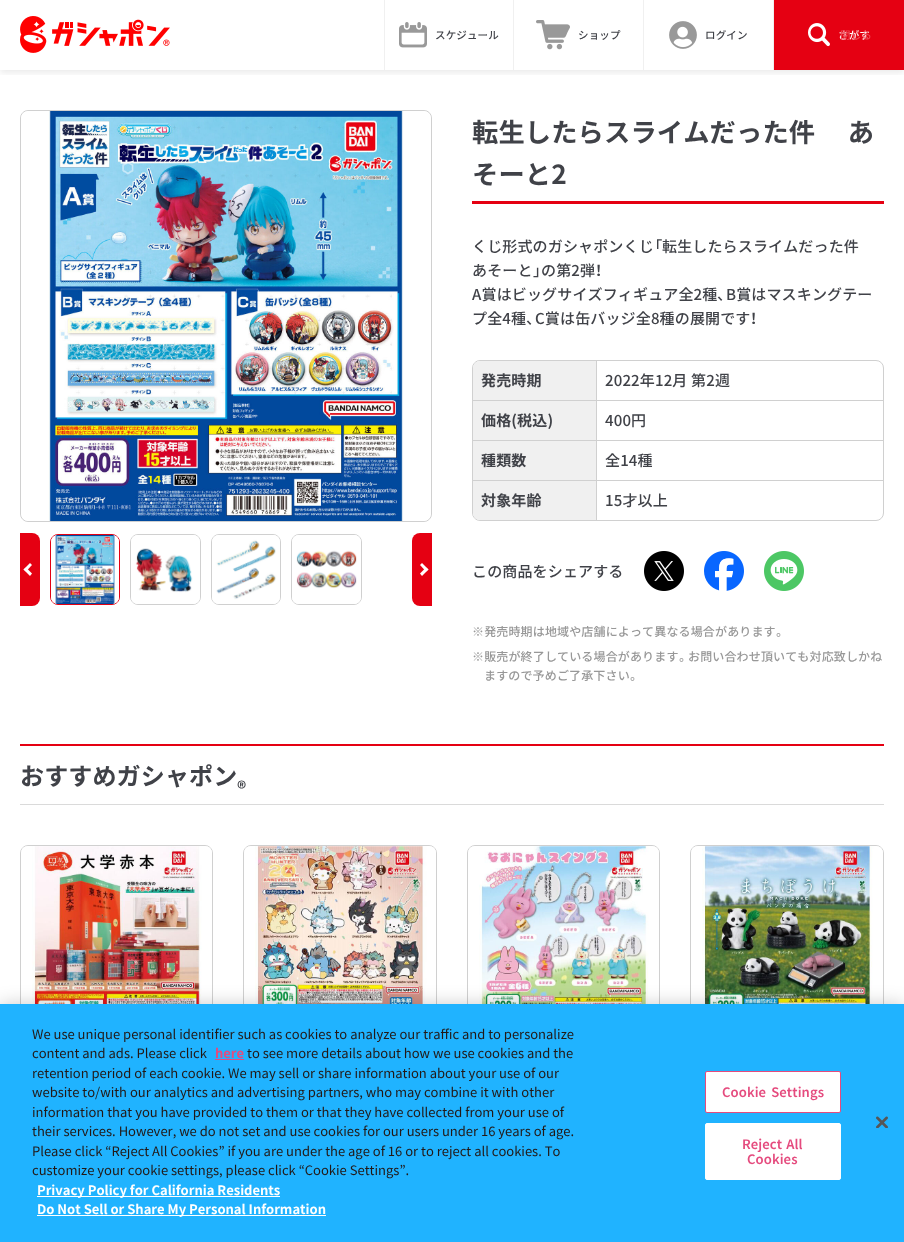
<!DOCTYPE html>
<meta charset="utf-8">
<style>body { margin: 0 } canvas { display: block }</style>
<canvas id="canvas" width="904" height="1242"></canvas>
<script type="module">
  const canvas = document.getElementById("canvas");
  const g = canvas.getContext("2d");
  g.miterLimit = 4;
  g.fontKerning = "none";
  function drawText(s, x, y, [font, color]) {
    g.font = font;
    g.fillStyle = color;
    g.fillText(s, x, y);
  }
  function fillBox(x, y, w, h, color) {
    g.fillStyle = color;
    g.fillRect(x, y, w, h);
  }
  async function drawPicture(src, x, y, w, h) {
    const img = new Image();
    img.src = src;
    await img.decode();
    g.drawImage(img, x, y, w, h);
  }

  const s1 = ["500 10.5px Noto Sans JP", "#404248"];
  const s2 = ["500 10.5px Noto Sans JP", "#FFFFFF"];
  const s3 = ["500 10.5px Noto Sans JP", "#EC4854"];
  const s4 = ["bold 26.25px Noto Sans JP", "#404248"];
  const s5 = ["500 15px Noto Sans JP", "#404248"];
  const s6 = ["500 15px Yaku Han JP", "#404248"];
  const s7 = ["bold 15px Noto Sans JP", "#404248"];
  const s8 = ["500 12px Noto Sans JP", "#989898"];
  const s9 = ["500 12px Yaku Han JP", "#989898"];
  const s10 = ["bold 24px Noto Sans JP", "#404248"];
  const s11 = ["bold 18px Noto Sans JP", "#404248"];
  const s12 = ["13px Noto Sans JP", "#231815"];
  const s13 = ["bold 13px Noto Sans JP", "#E54B7E"];
  const s14 = ["bold 13px Noto Sans JP", "#FFFFFF"];
  const s15 = ["600 13px Noto Sans JP", "#E54B7E"];

  fillBox(0, 0, 904, 1242, "#FFFFFF");
  g.save();
  g.beginPath();
  g.rect(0, 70, 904, 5);
  g.clip();
  g.fillStyle = "rgba(0, 0, 0, 0.08)";
  g.filter = "blur(3px)";
  g.beginPath();
  g.rect(0, 3, 904, 70);
  g.fill();
  g.filter = "none";
  g.restore();
  await drawPicture("pic1.png", 20, 16, 150, 37);
  fillBox(513, 0, 1, 70, "#F0F0F0");
  fillBox(384, 0, 1, 70, "#F0F0F0");
  await drawPicture("pic2.png", 399, 22, 28, 26);
  g.letterSpacing = "0.15px";
  drawText("スケジュール", 435, 39, s1);
  fillBox(643, 0, 1, 70, "#F0F0F0");
  await drawPicture("pic3.png", 536, 20, 34, 30);
  drawText("ショップ", 578, 39, s1);
  fillBox(773, 0, 1, 70, "#F0F0F0");
  await drawPicture("pic4.png", 669, 21, 28, 28);
  drawText("ログイン", 705, 39, s1);
  fillBox(774, 0, 130, 70, "#E50012");
  await drawPicture("pic5.png", 808, 23, 22, 24);
  drawText("さがす", 838, 39, s2);
  drawText("閉じる", 840, 39, s3);
  g.beginPath();
  g.roundRect(20.5, 110.5, 411, 411, 7.5);
  g.strokeStyle = "#D0D0D0";
  g.stroke();
  await drawPicture("pic6.png", 21, 111, 410, 410);
  g.fillStyle = "#E50012";
  g.beginPath();
  g.roundRect(20, 533, 20, 73, [0, 8, 8, 0]);
  g.fill();
  g.fillStyle = "#FFFFFF";
  g.beginPath();
  g.moveTo(23.5, 569.5);
  g.lineTo(30, 563);
  g.lineTo(32, 565);
  g.lineTo(26, 571.5);
  g.closePath();
  g.fill();
  g.beginPath();
  g.moveTo(23.5, 569.5);
  g.lineTo(26, 567.5);
  g.lineTo(32, 573.5);
  g.lineTo(30, 576);
  g.closePath();
  g.fill();
  g.beginPath();
  g.roundRect(50.5, 534.5, 69, 70, 7.5);
  g.strokeStyle = "#E50012";
  g.stroke();
  await drawPicture("pic7.png", 51, 535, 68, 69);
  g.beginPath();
  g.roundRect(130.5, 534.5, 70, 70, 7.5);
  g.strokeStyle = "#D0D0D0";
  g.stroke();
  await drawPicture("pic8.png", 131, 535, 69, 69);
  g.beginPath();
  g.roundRect(211.5, 534.5, 69, 70, 7.5);
  g.stroke();
  await drawPicture("pic9.png", 212, 535, 68, 69);
  g.beginPath();
  g.roundRect(291.5, 534.5, 70, 70, 7.5);
  g.stroke();
  await drawPicture("pic10.png", 292, 535, 69, 69);
  g.fillStyle = "#E50012";
  g.beginPath();
  g.roundRect(412, 533, 20, 73, [8, 0, 0, 8]);
  g.fill();
  g.fillStyle = "#FFFFFF";
  g.beginPath();
  g.moveTo(422, 563);
  g.lineTo(428.5, 569.5);
  g.lineTo(426, 571.5);
  g.lineTo(420, 565);
  g.closePath();
  g.fill();
  g.beginPath();
  g.moveTo(426, 567.5);
  g.lineTo(428.5, 569.5);
  g.lineTo(422, 576);
  g.lineTo(420, 573.5);
  g.closePath();
  g.fill();
  fillBox(472, 201, 412, 3, "#E50012");
  drawText("転生したらスライムだった件　 あ", 472, 142, s4);
  drawText("そーと2", 472, 184, s4);
  drawText("くじ形式のガシャポンくじ", 472, 252, s5);
  drawText("「", 654, 252, s6);
  drawText("転生したらスライムだった件", 662, 252, s5);
  drawText("あそーと", 472, 276, s5);
  drawText("」", 533, 276, s6);
  drawText("の第2弾", 541, 276, s5);
  drawText("！", 595, 276, s6);
  drawText("A賞はビッグサイズフィギュア全2種", 472, 300, s5);
  drawText("、", 717, 300, s6);
  drawText("B賞はマスキングテー", 726, 300, s5);
  drawText("プ全4種", 472, 324, s5);
  drawText("、", 526, 324, s6);
  drawText("C賞は缶バッジ全8種の展開です", 535, 324, s5);
  drawText("！", 750, 324, s6);
  g.beginPath();
  g.roundRect(472.5, 360.5, 411, 160, 7.5);
  g.stroke();
  g.fillStyle = "#F0F0F0";
  g.beginPath();
  g.roundRect(473, 361, 123, 39, [7, 0, 0, 0]);
  g.fill();
  drawText("発売時期", 481, 386, s7);
  fillBox(596, 361, 1, 39, "#D0D0D0");
  drawText("2022年12月 第2週", 605, 386, s5);
  fillBox(473, 400, 410, 1, "#D0D0D0");
  fillBox(473, 401, 123, 39, "#F0F0F0");
  drawText("価格(税込)", 481, 426, s7);
  fillBox(596, 401, 1, 39, "#D0D0D0");
  drawText("400円", 605, 426, s5);
  fillBox(473, 440, 410, 1, "#D0D0D0");
  fillBox(473, 441, 123, 39, "#F0F0F0");
  drawText("種類数", 481, 466, s7);
  fillBox(596, 441, 1, 39, "#D0D0D0");
  drawText("全14種", 605, 466, s5);
  fillBox(473, 480, 410, 1, "#D0D0D0");
  g.fillStyle = "#F0F0F0";
  g.beginPath();
  g.roundRect(473, 481, 123, 39, [0, 0, 0, 7]);
  g.fill();
  drawText("対象年齢", 481, 506, s7);
  fillBox(596, 481, 1, 39, "#D0D0D0");
  drawText("15才以上", 605, 506, s5);
  drawText("この商品をシェアする", 472, 577, s5);
  await drawPicture("pic11.png", 644, 551, 40, 40);
  await drawPicture("pic12.png", 704, 551, 40, 40);
  await drawPicture("pic13.png", 764, 551, 40, 40);
  drawText("※発売時期は地域や店舗によって異なる場合があります", 472, 636, s8);
  drawText("。", 776, 636, s9);
  drawText("※販売が終了している場合があります", 472, 661, s8);
  drawText("。", 679, 661, s9);
  drawText("お問い合わせ頂いても対応致しかね", 688, 661, s8);
  drawText("ますので予めご了承下さい", 484, 680, s8);
  drawText("。", 630, 680, s9);
  fillBox(20, 744, 864, 2, "#E50012");
  fillBox(20, 804, 864, 1, "#DADADA");
  drawText("おすすめガシャポン", 20, 785, s10);
  drawText("®", 237, 795, s11);
  g.beginPath();
  g.roundRect(20.5, 845.5, 192, 194, 7.5);
  g.stroke();
  await drawPicture("pic14.png", 21, 846, 191, 158);
  g.beginPath();
  g.roundRect(243.5, 845.5, 193, 194, 7.5);
  g.stroke();
  await drawPicture("pic15.png", 244, 846, 192, 158);
  g.beginPath();
  g.roundRect(467.5, 845.5, 192, 194, 7.5);
  g.stroke();
  await drawPicture("pic16.png", 468, 846, 191, 158);
  g.beginPath();
  g.roundRect(690.5, 845.5, 193, 194, 7.5);
  g.stroke();
  await drawPicture("pic17.png", 691, 846, 192, 158);
  g.fillStyle = "rgba(0, 0, 0, 0.2)";
  g.filter = "blur(9px)";
  g.beginPath();
  g.rect(0, 1004, 904, 238);
  g.fill();
  g.filter = "none";
  fillBox(0, 1004, 904, 238, "#20B3FF");
  g.letterSpacing = "0px";
  drawText("We use unique personal identifier such as cookies to analyze our traffic and to personalize", 32, 1039, s12);
  drawText("content and ads. Please click", 32, 1058, s12);
  drawText("here", 215, 1058, s13);
  fillBox(215, 1059, 29, 1, "#E54B7E");
  drawText("to see more details about how we use cookies and the", 247, 1058, s12);
  drawText("retention period of each cookie. We may sell or share information about your use of our", 32, 1078, s12);
  drawText("website to/with our analytics and advertising partners, who may combine it with other", 32, 1097, s12);
  drawText("information that you have provided to them or that they have collected from your use of", 32, 1117, s12);
  drawText("their services. However, we do not set and use cookies for our users under 16 years of age.", 32, 1136, s12);
  drawText("Please click “Reject All Cookies” if you are under the age of 16 or to reject all cookies. To", 32, 1156, s12);
  drawText("customize your cookie settings, please click “Cookie Settings”.", 32, 1175, s12);
  fillBox(37, 1196, 243, 1, "#FFFFFF");
  drawText("Privacy Policy for California Residents", 37, 1195, s14);
  fillBox(37, 1215, 289, 1, "#FFFFFF");
  drawText("Do Not Sell or Share My Personal Information", 37, 1214, s14);
  g.beginPath();
  g.roundRect(705.5, 1071.5, 135, 41, 1.5);
  g.fill();
  g.strokeStyle = "#E54B7E";
  g.stroke();
  g.letterSpacing = "0.1px";
  g.wordSpacing = "2px";
  drawText("Cookie Settings", 722, 1097, s15);
  g.fillStyle = "#FFFFFF";
  g.beginPath();
  g.roundRect(705.5, 1123.5, 135, 56, 1.5);
  g.fill();
  g.strokeStyle = "#FFFFFF";
  g.stroke();
  g.wordSpacing = "1px";
  drawText("Reject All", 742, 1149, s15);
  g.wordSpacing = "0px";
  drawText("Cookies", 747, 1164, s15);
  await drawPicture("pic18.png", 876, 1116, 12, 12);
</script>
